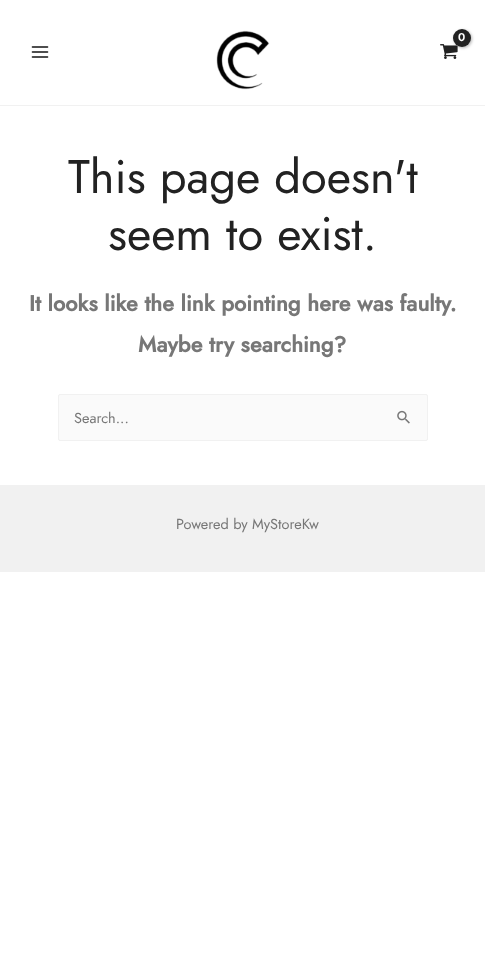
<!DOCTYPE html>
<meta charset="utf-8">
<style>body { margin: 0 } canvas { display: block }</style>
<canvas id="canvas" width="485" height="956"></canvas>
<script type="module">
  const canvas = document.getElementById("canvas");
  const g = canvas.getContext("2d");
  g.miterLimit = 4;
  g.fontKerning = "normal";
  function drawText(s, x, y, [font, color]) {
    g.font = font;
    g.fillStyle = color;
    g.fillText(s, x, y);
  }
  function fillBox(x, y, w, h, color) {
    g.fillStyle = color;
    g.fillRect(x, y, w, h);
  }
  async function drawPicture(src, x, y, w, h) {
    const img = new Image();
    img.src = src;
    await img.decode();
    g.drawImage(img, x, y, w, h);
  }

  const s1 = ["bold 11px Jost", "#FFFFFF"];
  const s2 = ["47px Jost", "#222222"];
  const s3 = ["bold 21.9px Jost", "#777777"];
  const s4 = ["14.5px Jost", "#777777"];

  fillBox(0, 0, 485, 956, "#FFFFFF");
  fillBox(0, 105, 485, 1, "#F1F1F1");
  await drawPicture("pic1.png", 216, 30, 54, 60);
  await drawPicture("pic2.png", 440, 44, 18, 15);
  g.fillStyle = "rgba(0, 0, 0, 0.3)";
  g.filter = "blur(1.5px)";
  g.beginPath();
  g.roundRect(454, 30, 18, 18, 9);
  g.fill();
  g.filter = "none";
  g.fillStyle = "#222222";
  g.beginPath();
  g.arc(462, 38, 9, 0, Math.PI * 2);
  g.fill();
  drawText("0", 458, 41, s1);
  await drawPicture("pic3.png", 31, 46, 18, 12);
  drawText("This page doesn't", 68, 193, s2);
  drawText("seem to exist.", 108, 250, s2);
  drawText("It looks like the link pointing here was faulty.", 29, 311, s3);
  drawText("Maybe try searching?", 138, 352, s3);
  g.fillStyle = "#FAFAFA";
  g.beginPath();
  g.roundRect(58.5, 394.5, 369, 46, 1.5);
  g.fill();
  g.strokeStyle = "#F1F1F1";
  g.stroke();
  drawText("Search...", 74, 423, s4);
  await drawPicture("pic4.png", 397, 410, 13, 14);
  fillBox(0, 485, 485, 87, "#F1F1F1");
  drawText("Powered by MyStoreKw", 176, 529, s4);
</script>
